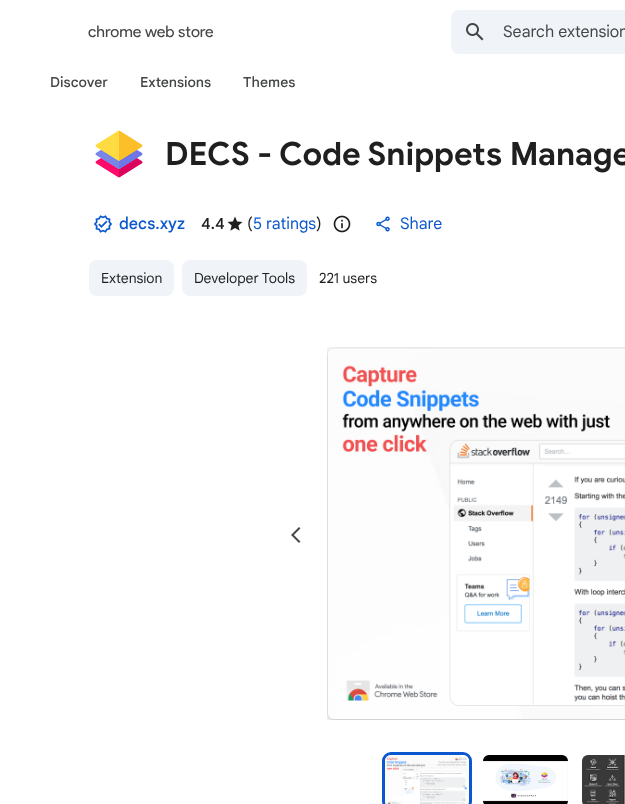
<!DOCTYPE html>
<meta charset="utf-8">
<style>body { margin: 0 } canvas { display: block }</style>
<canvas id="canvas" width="625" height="804"></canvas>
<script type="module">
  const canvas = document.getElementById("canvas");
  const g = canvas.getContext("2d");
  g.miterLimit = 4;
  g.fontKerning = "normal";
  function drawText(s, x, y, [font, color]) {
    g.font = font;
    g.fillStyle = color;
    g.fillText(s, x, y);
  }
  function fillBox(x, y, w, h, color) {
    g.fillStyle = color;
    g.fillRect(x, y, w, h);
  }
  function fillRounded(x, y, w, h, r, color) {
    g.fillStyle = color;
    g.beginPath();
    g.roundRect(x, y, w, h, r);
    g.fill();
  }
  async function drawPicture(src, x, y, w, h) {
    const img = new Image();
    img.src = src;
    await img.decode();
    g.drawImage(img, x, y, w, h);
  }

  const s1 = ["16px Product Sans", "#444746"];
  const s2 = ["16px Google Sans", "#444746"];
  const s3 = ["500 14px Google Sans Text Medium", "#444746"];
  const s4 = ["bold 32px Google Sans", "#1F1F1F"];
  const s5 = ["500 16px 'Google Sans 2'", "#0B57D0"];
  const s6 = ["500 16px Google Sans", "#1F1F1F"];
  const s7 = ["16px Google Sans", "#1F1F1F"];
  const s8 = ["16px Google Sans", "#0B57D0"];
  const s9 = ["16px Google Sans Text", "#0B57D0"];
  const s10 = ["14px Google Sans", "#1F1F1F"];

  fillBox(0, 0, 625, 804, "#FFFFFF");
  await drawPicture("pic1.png", 61, 21, 6, 1);
  drawText("chrome web store", 88, 37, s1);
  fillRounded(451, 10, 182, 44, 8, "#F0F4F9");
  await drawPicture("pic2.png", 466, 23, 18, 18);
  drawText("Search extension", 503, 37, s2);
  drawText("Discover", 50, 87, s3);
  drawText("Extensions", 140, 87, s3);
  drawText("Themes", 243, 87, s3);
  await drawPicture("pic3.png", 95, 130, 48, 48);
  drawText("DECS - Code Snippets Manage", 165, 165, s4);
  await drawPicture("pic4.png", 94, 215, 18, 18);
  drawText("decs.xyz", 119, 229, s5);
  drawText("4.4", 201, 229, s6);
  await drawPicture("pic5.png", 227, 216, 16, 15);
  drawText("(", 247, 229, s7);
  drawText("5 ratings", 253, 229, s8);
  drawText(")", 316, 229, s7);
  await drawPicture("pic6.png", 333, 215, 18, 18);
  await drawPicture("pic7.png", 376, 216, 14, 16);
  drawText("Share", 400, 229, s9);
  fillRounded(89, 260, 85, 36, 8, "#F0F4F9");
  drawText("Extension", 101, 283, s10);
  fillRounded(182, 260, 125, 36, 8, "#F0F4F9");
  drawText("Developer Tools", 194, 283, s10);
  drawText("221 users", 319, 283, s10);
  await drawPicture("pic8.png", 291, 527, 10, 16);
  await drawPicture("pic9.png", 327, 347, 298, 373);
  g.beginPath();
  g.roundRect(383.5, 753.5, 87, 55, 7.5);
  g.strokeStyle = "#0B57D0";
  g.lineWidth = 3;
  g.stroke();
  await drawPicture("pic10.png", 385, 755, 84, 49);
  await drawPicture("pic11.png", 483, 755, 85, 49);
  await drawPicture("pic12.png", 582, 755, 43, 49);
</script>
